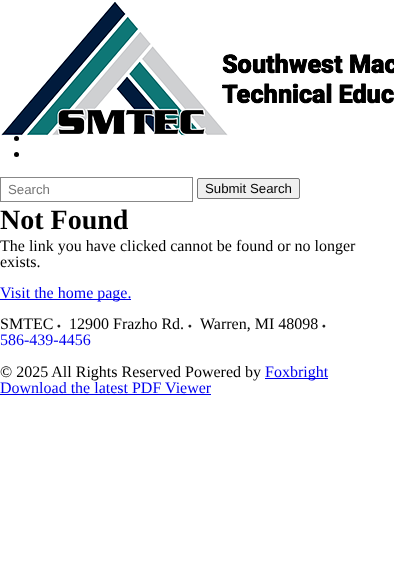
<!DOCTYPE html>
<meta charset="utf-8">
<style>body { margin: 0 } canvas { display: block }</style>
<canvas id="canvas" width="394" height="565"></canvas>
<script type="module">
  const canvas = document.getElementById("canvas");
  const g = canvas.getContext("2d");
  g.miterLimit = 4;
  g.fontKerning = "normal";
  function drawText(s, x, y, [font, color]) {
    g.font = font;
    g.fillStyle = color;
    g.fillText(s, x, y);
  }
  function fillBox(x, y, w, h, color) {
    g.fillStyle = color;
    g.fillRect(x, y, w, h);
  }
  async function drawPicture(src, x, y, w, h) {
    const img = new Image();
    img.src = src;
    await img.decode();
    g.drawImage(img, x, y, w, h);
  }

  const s1 = ["13.25px Liberation Sans", "#757575"];
  const s2 = ["13.25px Liberation Sans", "#000000"];
  const s3 = ["bold 28px Liberation Serif", "#000000"];
  const s4 = ["16px Liberation Serif", "#000000"];
  const s5 = ["16px Liberation Serif", "#0000EE"];

  fillBox(0, 0, 394, 565, "#FFFFFF");
  await drawPicture("pic1.png", 1, 2, 393, 134);
  g.fillStyle = "#000000";
  g.beginPath();
  g.arc(16.5, 138.5, 2.5, 0, Math.PI * 2);
  g.fill();
  g.beginPath();
  g.arc(16.5, 154.5, 2.5, 0, Math.PI * 2);
  g.fill();
  g.strokeStyle = "#888888";
  g.strokeRect(0.5, 177.5, 192, 24);
  drawText("Search", 8, 194, s1);
  g.fillStyle = "#EFEFEF";
  g.beginPath();
  g.roundRect(197.5, 178.5, 102, 20, 1.5);
  g.fill();
  g.strokeStyle = "#767676";
  g.stroke();
  drawText("Submit Search", 205, 193, s2);
  drawText("Not Found", 0, 229, s3);
  drawText("The link you have clicked cannot be found or no longer", 0, 251, s4);
  drawText("exists.", 0, 267, s4);
  fillBox(0, 299, 131, 1, "#0000EE");
  drawText("Visit the home page.", 0, 298, s5);
  drawText("SMTEC", 0, 329, s4);
  await drawPicture("pic2.png", 57, 324, 4, 4);
  drawText("12900 Frazho Rd.", 69, 329, s4);
  await drawPicture("pic2.png", 188, 324, 4, 4);
  drawText("Warren, MI 48098", 200, 329, s4);
  await drawPicture("pic2.png", 322, 324, 4, 4);
  drawText("586-439-4456", 0, 345, s5);
  drawText("© 2025 All Rights Reserved Powered by", 0, 377, s4);
  fillBox(265, 378, 63, 1, "#0000EE");
  drawText("Foxbright", 265, 377, s5);
  drawText("Download the latest PDF Viewer", 0, 393, s5);
  fillBox(0, 394, 211, 1, "#0000EE");
</script>
